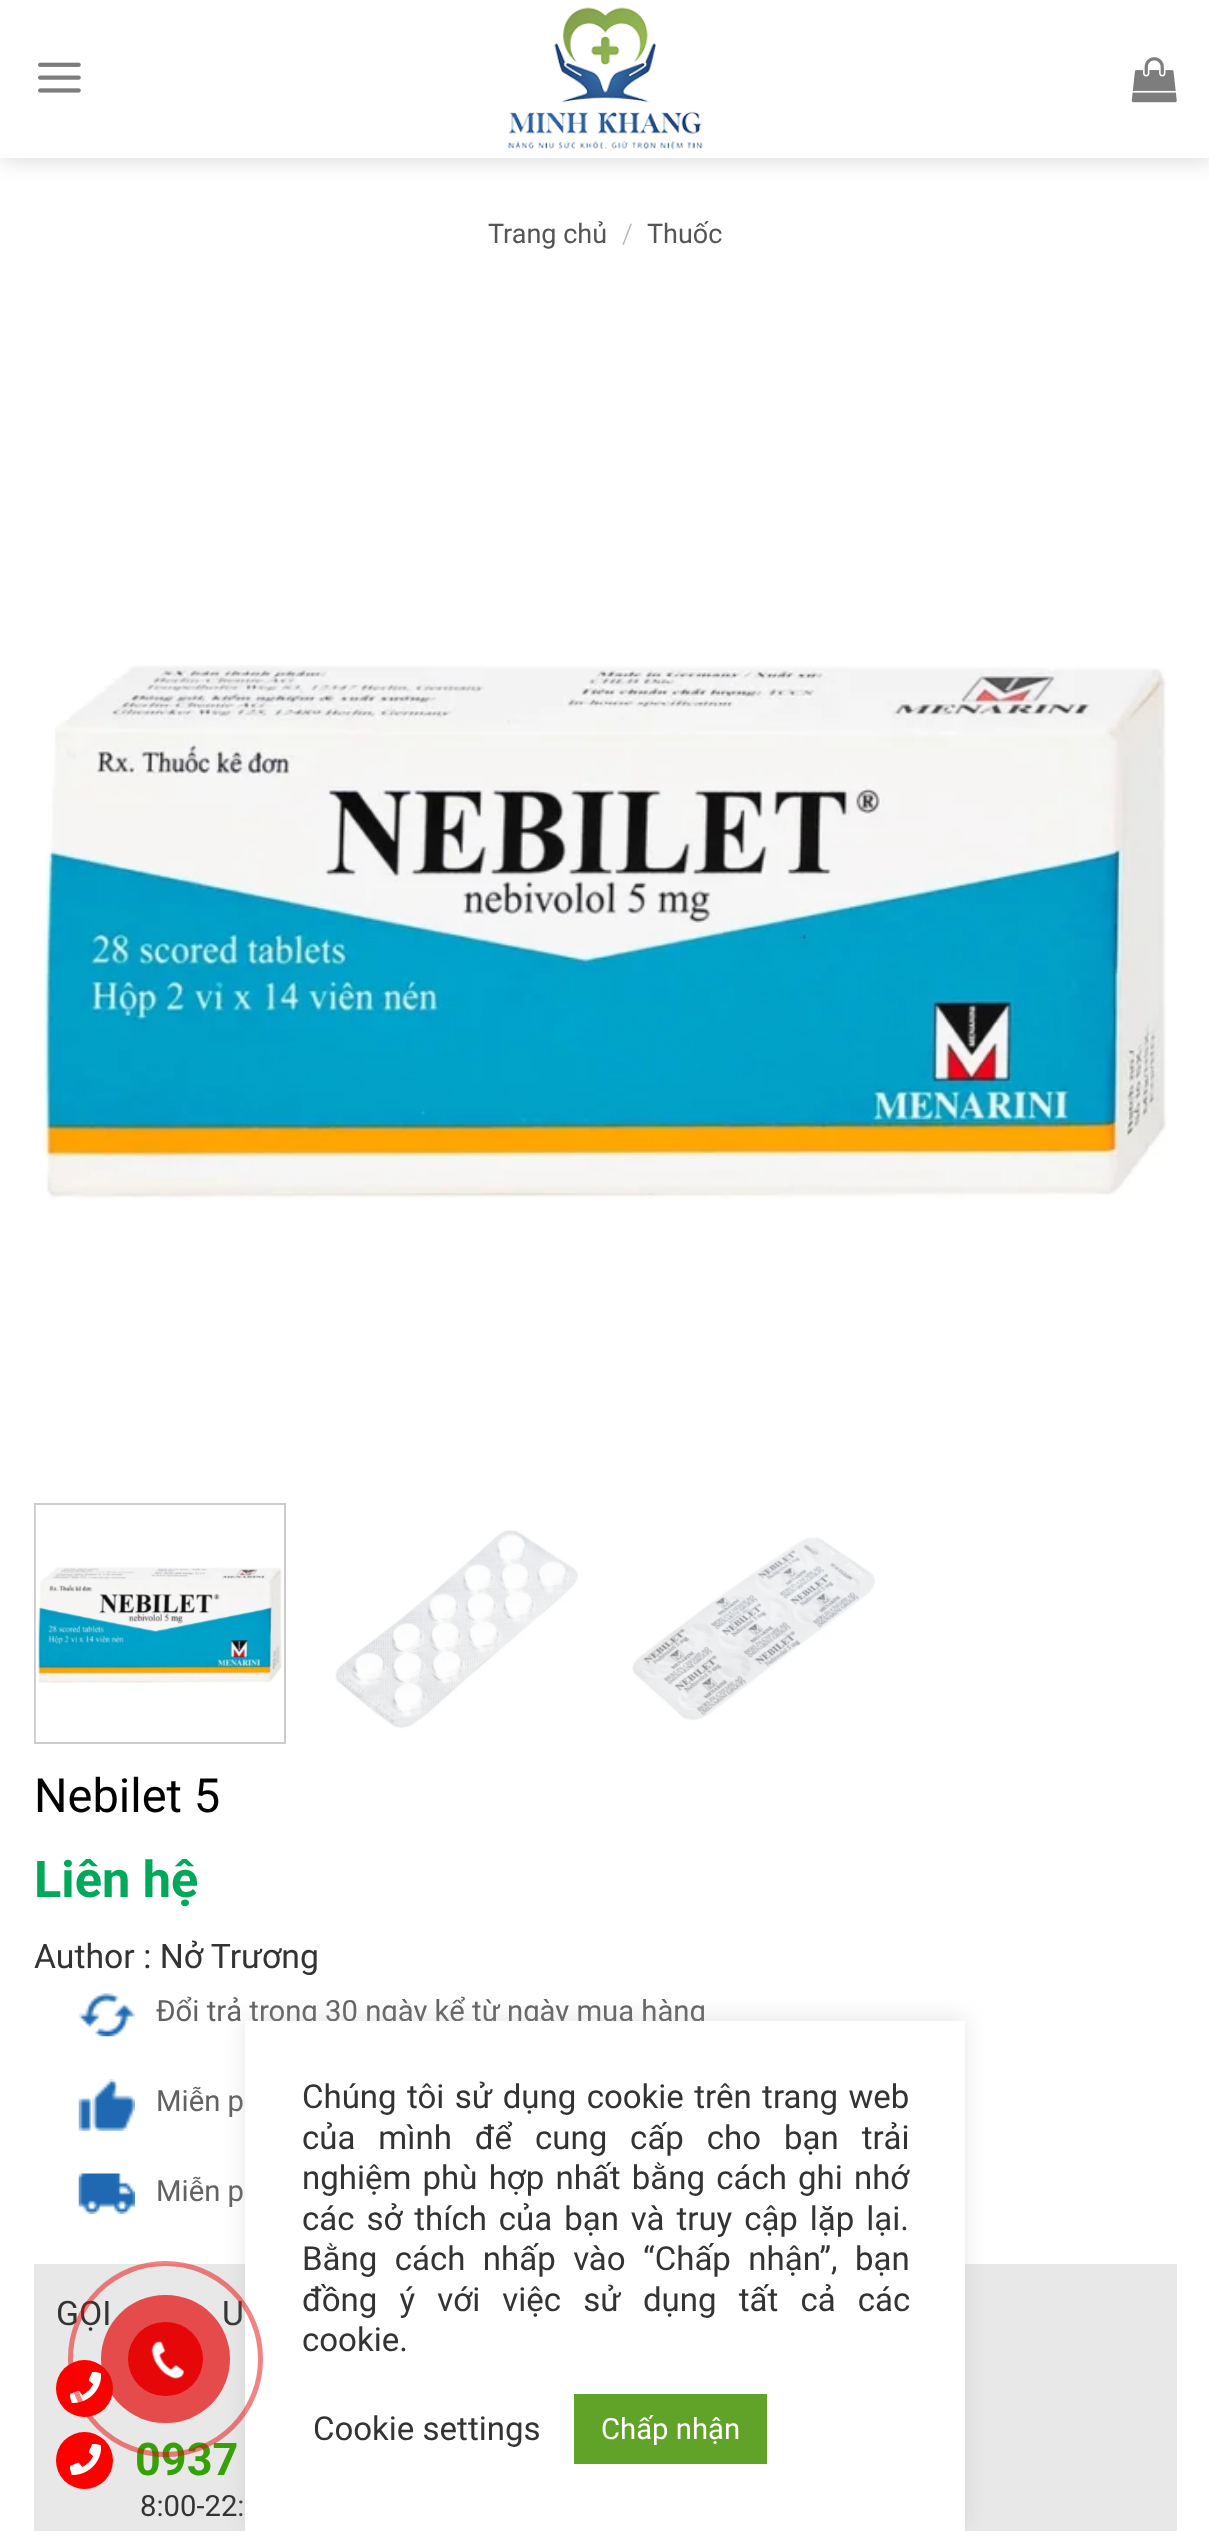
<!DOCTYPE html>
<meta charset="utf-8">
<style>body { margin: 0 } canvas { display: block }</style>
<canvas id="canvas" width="1209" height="2531"></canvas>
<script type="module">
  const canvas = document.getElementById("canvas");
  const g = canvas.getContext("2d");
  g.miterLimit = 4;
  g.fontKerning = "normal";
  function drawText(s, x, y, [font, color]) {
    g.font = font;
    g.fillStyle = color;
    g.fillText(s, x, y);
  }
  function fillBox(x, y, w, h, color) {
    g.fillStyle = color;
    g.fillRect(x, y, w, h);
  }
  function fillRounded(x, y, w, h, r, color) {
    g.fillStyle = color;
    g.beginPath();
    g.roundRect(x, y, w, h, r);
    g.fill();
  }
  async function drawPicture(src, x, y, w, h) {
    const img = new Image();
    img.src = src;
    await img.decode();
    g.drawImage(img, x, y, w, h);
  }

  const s1 = ["27px Roboto", "#555555"];
  const s2 = ["300 27px Roboto", "#B2B2B2"];
  const s3 = ["47px Roboto", "#000000"];
  const s4 = ["bold 50.5px Roboto", "#01A85A"];
  const s5 = ["33.75px Roboto", "#333333"];
  const s6 = ["29.25px Roboto", "#626262"];
  const s7 = ["bold 45px Roboto", "#35A106"];
  const s8 = ["29.25px Roboto", "#333333"];
  const s9 = ["33px Roboto", "#333333"];
  const s10 = ["29.25px Roboto", "#FFFFFF"];

  fillBox(0, 0, 1209, 2531, "#FFFFFF");
  g.save();
  g.beginPath();
  g.moveTo(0, 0);
  g.lineTo(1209, 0);
  g.lineTo(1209, 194);
  g.lineTo(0, 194);
  g.closePath();
  g.moveTo(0, 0);
  g.lineTo(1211, 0);
  g.lineTo(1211, 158);
  g.lineTo(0, 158);
  g.closePath();
  g.clip("evenodd");
  g.fillStyle = "rgba(0, 0, 0, 0.15)";
  g.filter = "blur(11px)";
  g.beginPath();
  g.rect(2, 2, 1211, 158);
  g.fill();
  g.filter = "none";
  g.restore();
  await drawPicture("pic1.png", 38, 62, 43, 31);
  await drawPicture("pic2.png", 508, 7, 195, 143);
  await drawPicture("pic3.png", 1131, 57, 46, 46);
  fillBox(0, 157, 1209, 1, "rgba(255, 255, 255, 0.9)");
  drawText("Trang chủ", 488, 243, s1);
  drawText("/", 622, 243, s2);
  drawText("Thuốc", 647, 243, s1);
  await drawPicture("pic4.png", 41, 665, 1126, 534);
  g.strokeStyle = "#CCCCCC";
  g.lineWidth = 2;
  g.strokeRect(35, 1504, 250, 239);
  await drawPicture("pic5.png", 35, 1505, 247, 236);
  await drawPicture("pic6.png", 335, 1530, 244, 199);
  await drawPicture("pic7.png", 632, 1537, 244, 184);
  drawText("Nebilet 5", 34, 1812, s3);
  drawText("Liên hệ", 34, 1897, s4);
  drawText("Author : Nở Trương", 34, 1968, s5);
  await drawPicture("pic8.png", 78, 1993, 57, 44);
  drawText("Đổi trả trong 30 ngày kể từ ngày mua hàng", 156, 2021, s6);
  await drawPicture("pic9.png", 78, 2079, 57, 52);
  drawText("Miễn p", 156, 2111, s6);
  await drawPicture("pic10.png", 78, 2173, 57, 41);
  drawText("Miễn p", 156, 2201, s6);
  fillBox(34, 2264, 1143, 267, "#E8E8E8");
  drawText("GỌI", 56, 2325, s5);
  drawText("U", 222, 2325, s5);
  g.fillStyle = "#FF0000";
  g.beginPath();
  g.arc(84.5, 2388.5, 28.5, 0, Math.PI * 2);
  g.fill();
  await drawPicture("pic11.png", 70, 2372, 31, 31);
  g.beginPath();
  g.arc(84.5, 2460.5, 28.5, 0, Math.PI * 2);
  g.fill();
  await drawPicture("pic11.png", 70, 2444, 31, 31);
  drawText("0937", 135, 2475, s7);
  drawText("8:00-22:", 140, 2516, s8);
  g.fillStyle = "rgba(172, 171, 171, 0.3)";
  g.filter = "blur(11px)";
  g.beginPath();
  g.rect(245, 2018, 720, 511);
  g.fill();
  g.filter = "none";
  fillBox(245, 2021, 720, 510, "#FFFFFF");
  g.beginPath();
  g.roundRect(70.5, 2263.5, 190, 191, 95);
  g.strokeStyle = "rgba(230, 8, 8, 0.5)";
  g.lineWidth = 5;
  g.stroke();
  fillRounded(101, 2295, 129, 128, 64, "rgba(230, 8, 8, 0.7)");
  fillRounded(128, 2322, 75, 74, 37, "#E60808");
  await drawPicture("pic12.png", 151, 2341, 33, 38);
  g.wordSpacing = "2.25px";
  drawText("Chúng tôi sử dụng cookie trên trang web", 302, 2108, s9);
  g.wordSpacing = "14.75px";
  drawText("của mình để cung cấp cho bạn trải", 302, 2149, s9);
  g.wordSpacing = "3px";
  drawText("nghiệm phù hợp nhất bằng cách ghi nhớ", 302, 2189, s9);
  g.wordSpacing = "3.75px";
  drawText("các sở thích của bạn và truy cập lặp lại.", 302, 2230, s9);
  g.wordSpacing = "9.25px";
  drawText("Bằng cách nhấp vào “Chấp nhận”, bạn", 302, 2270, s9);
  g.wordSpacing = "14px";
  drawText("đồng ý với việc sử dụng tất cả các", 302, 2311, s9);
  g.wordSpacing = "0px";
  drawText("cookie.", 302, 2351, s9);
  drawText("Cookie settings", 313, 2440, s9);
  fillBox(574, 2394, 193, 70, "#61A229");
  drawText("Chấp nhận", 601, 2439, s10);
</script>
